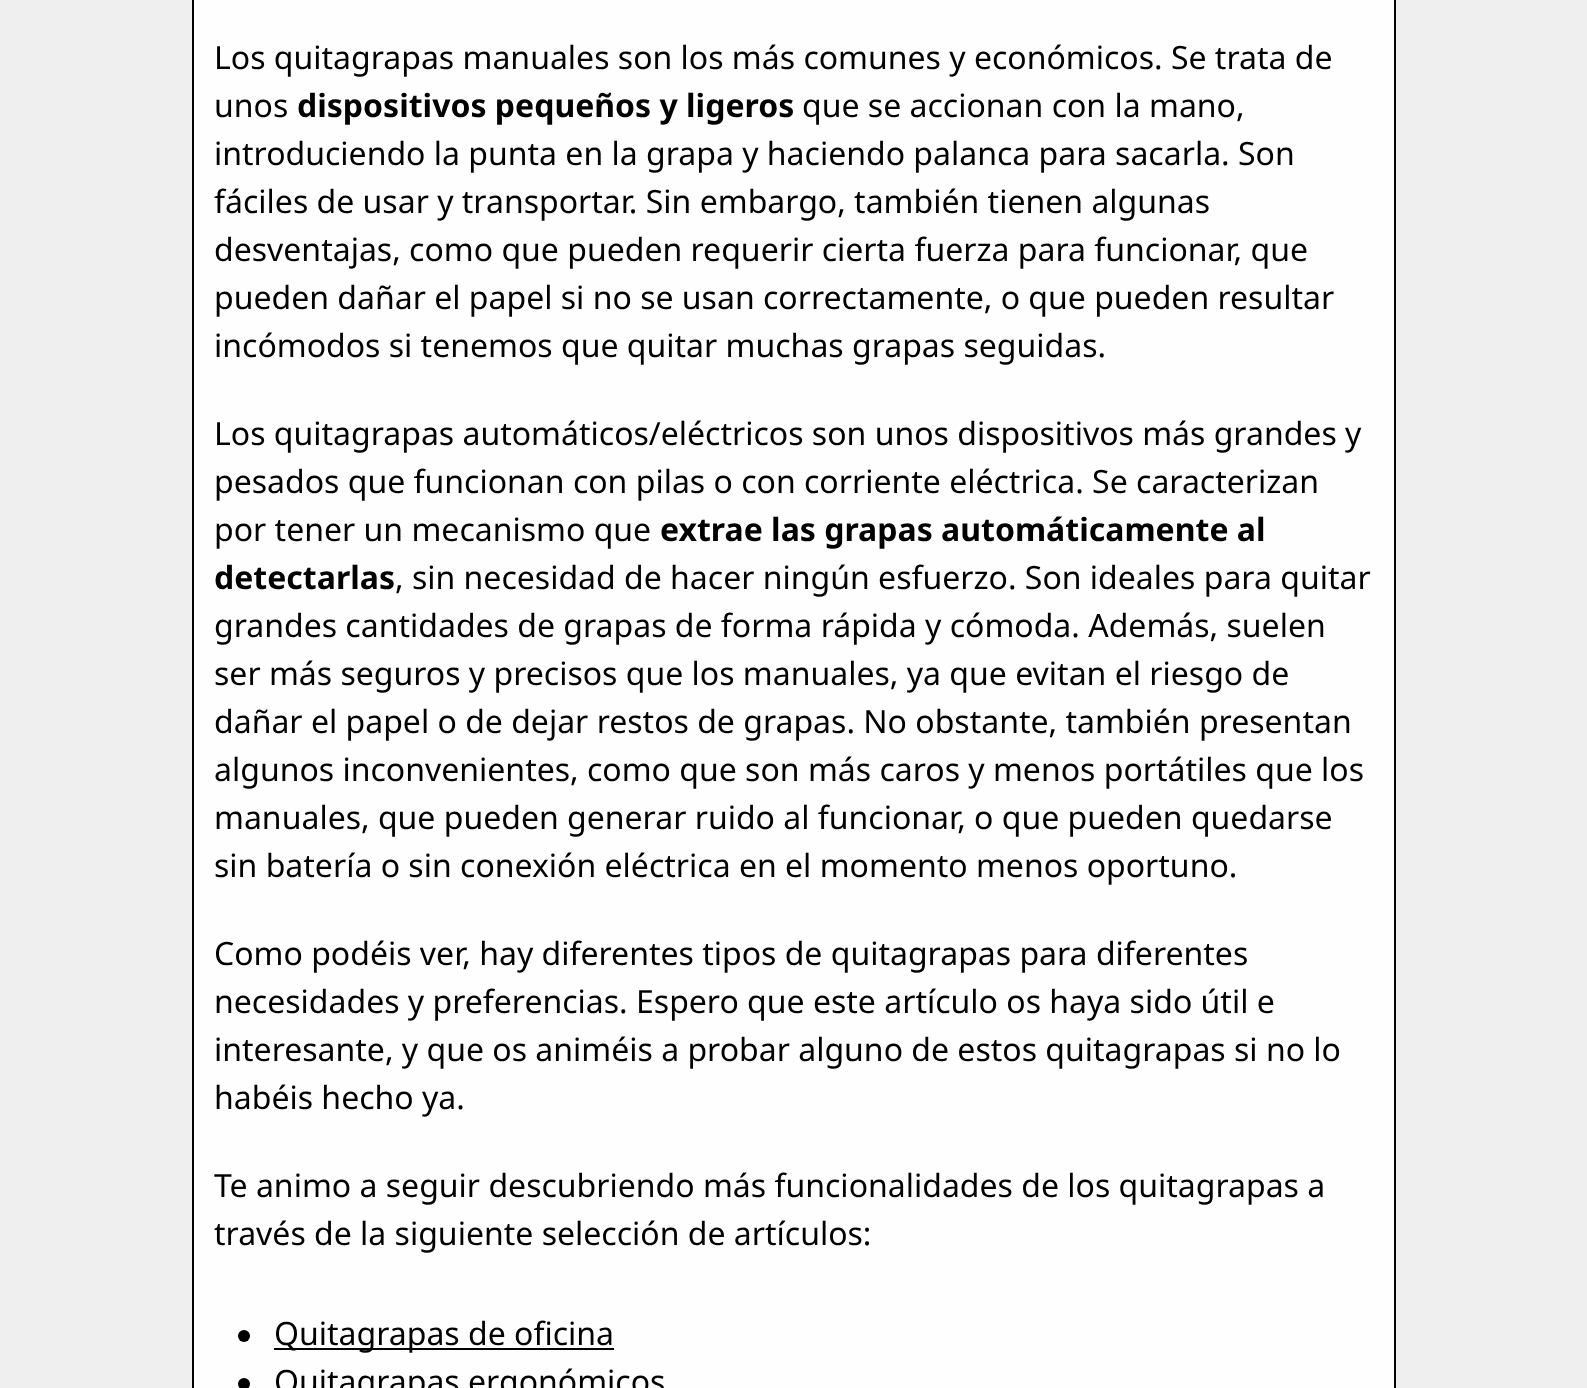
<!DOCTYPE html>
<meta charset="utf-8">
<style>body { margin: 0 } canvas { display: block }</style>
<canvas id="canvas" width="1587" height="1388"></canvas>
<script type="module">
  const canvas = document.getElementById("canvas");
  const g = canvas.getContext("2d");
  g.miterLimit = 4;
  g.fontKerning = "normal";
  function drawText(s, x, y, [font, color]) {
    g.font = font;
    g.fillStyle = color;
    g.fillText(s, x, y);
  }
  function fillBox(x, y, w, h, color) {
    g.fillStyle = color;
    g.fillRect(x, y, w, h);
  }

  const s1 = ["32px Noto Sans", "#000000"];
  const s2 = ["bold 32px Noto Sans", "#000000"];

  fillBox(0, 0, 1587, 1388, "#EFEFEF");
  g.fillStyle = "#FEFEFE";
  g.beginPath();
  g.rect(193, -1, 1202, 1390);
  g.fill();
  g.strokeStyle = "#000000";
  g.lineWidth = 2;
  g.stroke();
  drawText("Los quitagrapas manuales son los más comunes y económicos. Se trata de", 214, 69, s1);
  drawText("unos", 214, 117, s1);
  drawText("dispositivos pequeños y ligeros", 297, 117, s2);
  drawText("que se accionan con la mano,", 802, 117, s1);
  drawText("introduciendo la punta en la grapa y haciendo palanca para sacarla. Son", 214, 165, s1);
  drawText("fáciles de usar y transportar. Sin embargo, también tienen algunas", 214, 213, s1);
  drawText("desventajas, como que pueden requerir cierta fuerza para funcionar, que", 214, 261, s1);
  drawText("pueden dañar el papel si no se usan correctamente, o que pueden resultar", 214, 309, s1);
  drawText("incómodos si tenemos que quitar muchas grapas seguidas.", 214, 357, s1);
  drawText("Los quitagrapas automáticos/eléctricos son unos dispositivos más grandes y", 214, 445, s1);
  drawText("pesados que funcionan con pilas o con corriente eléctrica. Se caracterizan", 214, 493, s1);
  drawText("por tener un mecanismo que", 214, 541, s1);
  drawText("extrae las grapas automáticamente al", 660, 541, s2);
  drawText("detectarlas", 214, 589, s2);
  drawText(", sin necesidad de hacer ningún esfuerzo. Son ideales para quitar", 395, 589, s1);
  drawText("grandes cantidades de grapas de forma rápida y cómoda. Además, suelen", 214, 637, s1);
  drawText("ser más seguros y precisos que los manuales, ya que evitan el riesgo de", 214, 685, s1);
  drawText("dañar el papel o de dejar restos de grapas. No obstante, también presentan", 214, 733, s1);
  drawText("algunos inconvenientes, como que son más caros y menos portátiles que los", 214, 781, s1);
  drawText("manuales, que pueden generar ruido al funcionar, o que pueden quedarse", 214, 829, s1);
  drawText("sin batería o sin conexión eléctrica en el momento menos oportuno.", 214, 877, s1);
  drawText("Como podéis ver, hay diferentes tipos de quitagrapas para diferentes", 214, 965, s1);
  drawText("necesidades y preferencias. Espero que este artículo os haya sido útil e", 214, 1013, s1);
  drawText("interesante, y que os animéis a probar alguno de estos quitagrapas si no lo", 214, 1061, s1);
  drawText("habéis hecho ya.", 214, 1109, s1);
  drawText("Te animo a seguir descubriendo más funcionalidades de los quitagrapas a", 214, 1197, s1);
  drawText("través de la siguiente selección de artículos:", 214, 1245, s1);
  g.beginPath();
  g.arc(244, 1336, 6, 0, Math.PI * 2);
  g.fill();
  fillBox(274, 1348, 340, 2, "#000000");
  drawText("Quitagrapas de oficina", 274, 1345, s1);
  g.beginPath();
  g.arc(244, 1384, 6, 0, Math.PI * 2);
  g.fill();
  drawText("Quitagrapas ergonómicos", 274, 1393, s1);
</script>
